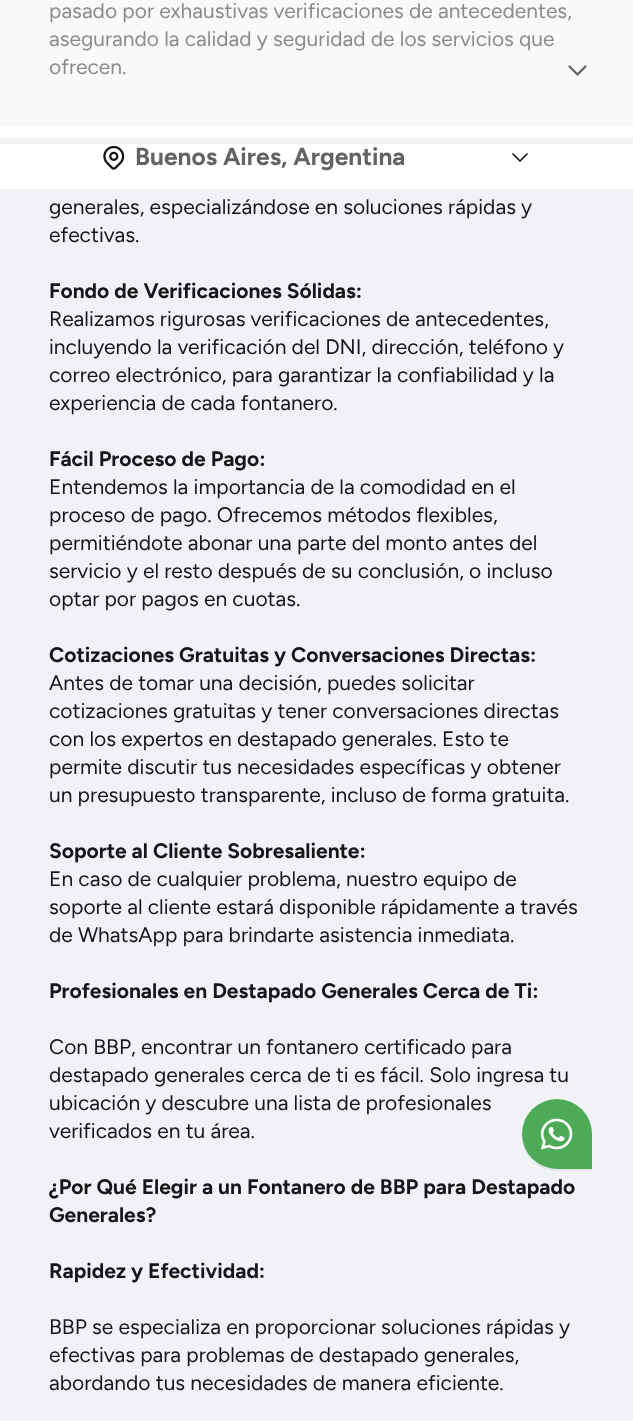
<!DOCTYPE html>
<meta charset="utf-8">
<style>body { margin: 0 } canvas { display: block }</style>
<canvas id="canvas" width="633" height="1421"></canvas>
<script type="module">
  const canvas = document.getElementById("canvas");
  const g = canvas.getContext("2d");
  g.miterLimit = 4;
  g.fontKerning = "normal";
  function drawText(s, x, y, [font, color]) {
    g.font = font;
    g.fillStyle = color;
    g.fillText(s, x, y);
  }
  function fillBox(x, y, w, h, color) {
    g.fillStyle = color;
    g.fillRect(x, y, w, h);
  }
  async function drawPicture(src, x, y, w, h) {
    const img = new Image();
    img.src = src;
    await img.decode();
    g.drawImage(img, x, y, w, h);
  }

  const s1 = ["21px Figtree", "#8A8B8B"];
  const s2 = ["21px Figtree", "#151617"];
  const s3 = ["bold 21px Figtree", "#151617"];
  const s4 = ["bold 24.5px Figtree", "#636363"];

  fillBox(0, 0, 633, 1421, "#F1F2F6");
  fillBox(0, 0, 633, 126, "#F8F9FB");
  drawText("pasado por exhaustivas verificaciones de antecedentes,", 49, 18, s1);
  drawText("asegurando la calidad y seguridad de los servicios que", 49, 46, s1);
  drawText("ofrecen.", 49, 74, s1);
  drawText("generales, especializándose en soluciones rápidas y", 49, 214, s2);
  drawText("efectivas.", 49, 242, s2);
  drawText("Fondo de Verificaciones Sólidas:", 49, 298, s3);
  drawText("Realizamos rigurosas verificaciones de antecedentes,", 49, 326, s2);
  drawText("incluyendo la verificación del DNI, dirección, teléfono y", 49, 354, s2);
  drawText("correo electrónico, para garantizar la confiabilidad y la", 49, 382, s2);
  drawText("experiencia de cada fontanero.", 49, 410, s2);
  drawText("Fácil Proceso de Pago:", 49, 466, s3);
  drawText("Entendemos la importancia de la comodidad en el", 49, 494, s2);
  drawText("proceso de pago. Ofrecemos métodos flexibles,", 49, 522, s2);
  drawText("permitiéndote abonar una parte del monto antes del", 49, 550, s2);
  drawText("servicio y el resto después de su conclusión, o incluso", 49, 578, s2);
  drawText("optar por pagos en cuotas.", 49, 606, s2);
  drawText("Cotizaciones Gratuitas y Conversaciones Directas:", 49, 662, s3);
  drawText("Antes de tomar una decisión, puedes solicitar", 49, 690, s2);
  drawText("cotizaciones gratuitas y tener conversaciones directas", 49, 718, s2);
  drawText("con los expertos en destapado generales. Esto te", 49, 746, s2);
  drawText("permite discutir tus necesidades específicas y obtener", 49, 774, s2);
  drawText("un presupuesto transparente, incluso de forma gratuita.", 49, 802, s2);
  drawText("Soporte al Cliente Sobresaliente:", 49, 858, s3);
  drawText("En caso de cualquier problema, nuestro equipo de", 49, 886, s2);
  drawText("soporte al cliente estará disponible rápidamente a través", 49, 914, s2);
  drawText("de WhatsApp para brindarte asistencia inmediata.", 49, 942, s2);
  drawText("Profesionales en Destapado Generales Cerca de Ti:", 49, 998, s3);
  drawText("Con BBP, encontrar un fontanero certificado para", 49, 1054, s2);
  drawText("destapado generales cerca de ti es fácil. Solo ingresa tu", 49, 1082, s2);
  drawText("ubicación y descubre una lista de profesionales", 49, 1110, s2);
  drawText("verificados en tu área.", 49, 1138, s2);
  drawText("¿Por Qué Elegir a un Fontanero de BBP para Destapado", 49, 1194, s3);
  drawText("Generales?", 49, 1222, s3);
  drawText("Rapidez y Efectividad:", 49, 1278, s3);
  drawText("BBP se especializa en proporcionar soluciones rápidas y", 49, 1334, s2);
  drawText("efectivas para problemas de destapado generales,", 49, 1362, s2);
  drawText("abordando tus necesidades de manera eficiente.", 49, 1390, s2);
  g.fillStyle = "#E5E6EA";
  g.beginPath();
  g.moveTo(523, 1144);
  g.bezierCurveTo(526, 1159, 540, 1171, 557, 1171);
  g.lineTo(592, 1171);
  g.lineTo(592, 1136);
  g.bezierCurveTo(592, 1133, 592, 1130, 591, 1126);
  g.lineTo(592, 1134);
  g.lineTo(592, 1169);
  g.lineTo(556, 1169);
  g.bezierCurveTo(540, 1169, 527, 1158, 523, 1144);
  g.closePath();
  g.fill();
  g.fillStyle = "#4DAA57";
  g.beginPath();
  g.roundRect(522, 1099, 70, 70, [35, 35, 0, 35]);
  g.fill();
  await drawPicture("pic1.png", 540, 1118, 33, 32);
  g.fillStyle = "#F2F2F2";
  g.beginPath();
  g.moveTo(0, 142);
  g.lineTo(0, 144);
  g.lineTo(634, 144);
  g.lineTo(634, 2);
  g.lineTo(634, 142);
  g.closePath();
  g.fill();
  g.beginPath();
  g.moveTo(585.5, 66.5);
  g.lineTo(577.5, 74.5);
  g.lineTo(569.5, 66.5);
  g.strokeStyle = "#636363";
  g.lineWidth = 2.3;
  g.lineCap = "round";
  g.lineJoin = "round";
  g.stroke();
  fillBox(0, 144, 633, 45, "#FFFFFF");
  fillBox(0, 126, 633, 12, "#FFFFFF");
  await drawPicture("pic2.png", 103, 145, 22, 25);
  drawText("Buenos Aires, Argentina", 135, 165, s4);
  g.beginPath();
  g.moveTo(513, 154);
  g.lineTo(520, 161);
  g.lineTo(527, 154);
  g.strokeStyle = "#151617";
  g.lineWidth = 1.7;
  g.stroke();
</script>
